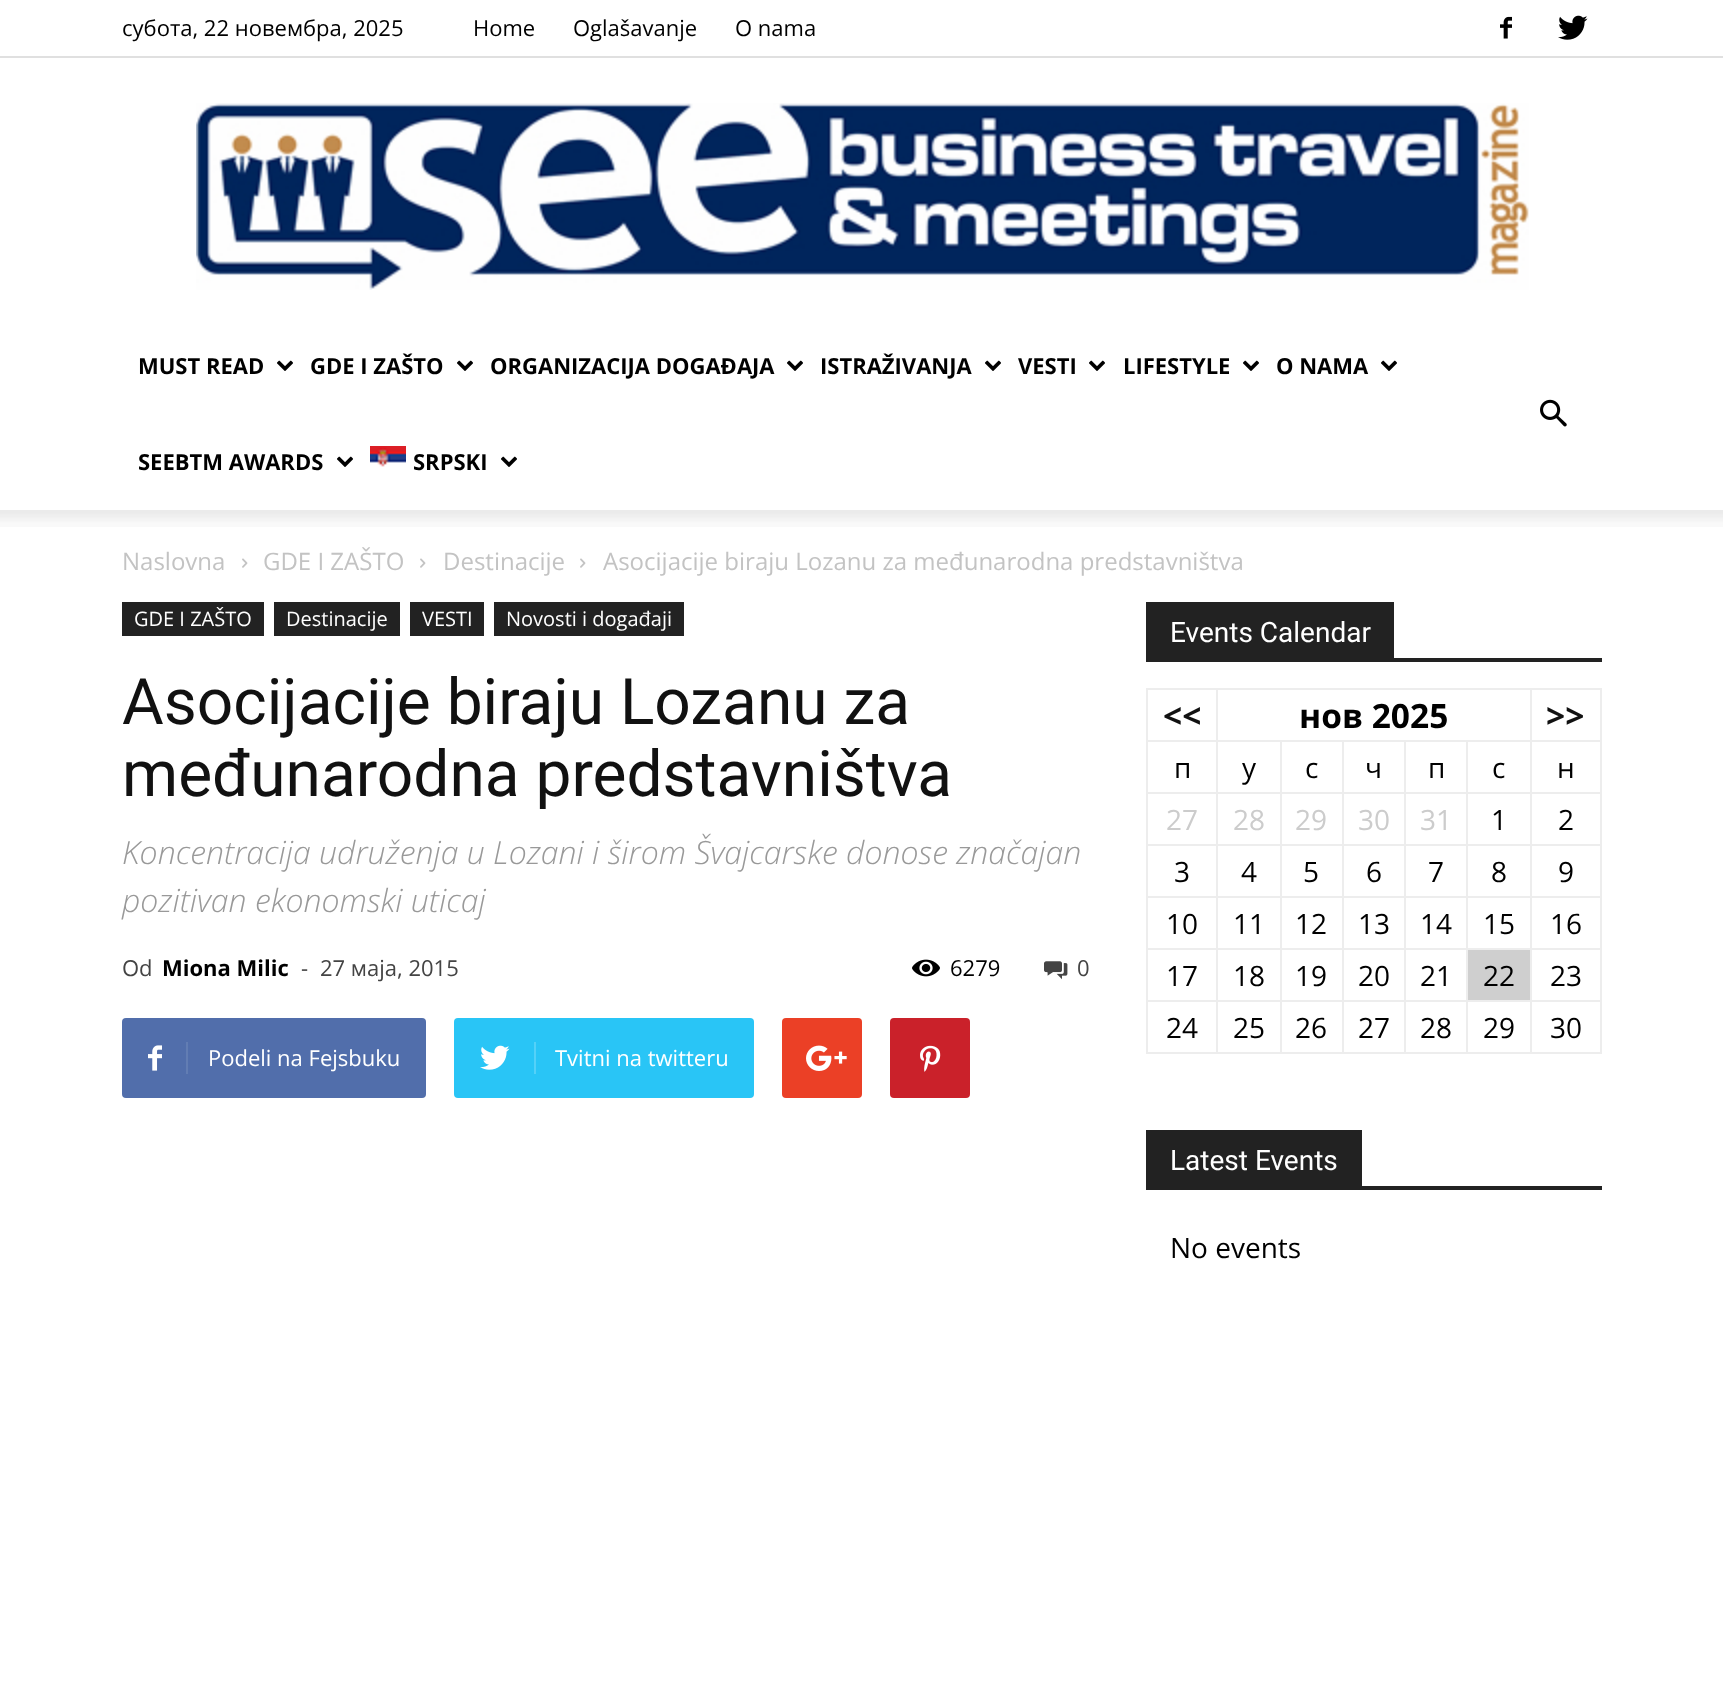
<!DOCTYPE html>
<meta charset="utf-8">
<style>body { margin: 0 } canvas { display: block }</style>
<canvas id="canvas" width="1723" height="1707"></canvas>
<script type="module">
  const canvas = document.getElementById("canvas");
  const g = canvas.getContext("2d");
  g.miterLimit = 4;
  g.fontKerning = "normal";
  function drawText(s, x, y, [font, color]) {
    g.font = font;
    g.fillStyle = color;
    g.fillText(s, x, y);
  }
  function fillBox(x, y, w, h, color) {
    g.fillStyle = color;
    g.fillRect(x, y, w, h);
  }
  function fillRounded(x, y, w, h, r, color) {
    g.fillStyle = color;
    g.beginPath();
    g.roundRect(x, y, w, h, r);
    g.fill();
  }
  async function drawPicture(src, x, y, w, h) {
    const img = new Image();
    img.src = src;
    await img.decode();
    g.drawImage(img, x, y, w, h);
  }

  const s1 = ["22px Open Sans", "#000000"];
  const s2 = ["bold 22px Open Sans", "#000000"];
  const s3 = ["24px Open Sans", "#C3C3C3"];
  const s4 = ["20px Open Sans", "#FFFFFF"];
  const s5 = ["64px Roboto", "#111111"];
  const s6 = ["italic 300 32px Open Sans", "#999999"];
  const s7 = ["22px Open Sans", "#444444"];
  const s8 = ["22px Open Sans", "#FFFFFF"];
  const s9 = ["28px Roboto", "#FFFFFF"];
  const s10 = ["bold 33.5px Open Sans", "#111111"];
  const s11 = ["bold 33.5px Open Sans", "#000000"];
  const s12 = ["28px Open Sans", "#000000"];
  const s13 = ["28px Open Sans", "#CCCCCC"];

  fillBox(0, 0, 1723, 1707, "#FFFFFF");
  fillBox(0, 56, 1723, 2, "#E0E0E0");
  drawText("субота, 22 новембра, 2025", 122, 36, s1);
  drawText("Home", 473, 36, s1);
  drawText("Oglašavanje", 573, 36, s1);
  drawText("О nama", 735, 36, s1);
  await drawPicture("pic1.png", 1500, 16, 12, 23);
  await drawPicture("pic2.png", 1558, 15, 30, 25);
  await drawPicture("pic3.png", 196, 103, 1333, 187);
  drawText("MUST READ", 138, 374, s2);
  await drawPicture("pic4.png", 277, 360, 16, 11);
  drawText("GDE I ZAŠTO", 310, 374, s2);
  await drawPicture("pic4.png", 457, 360, 16, 11);
  drawText("ORGANIZACIJA DOGAĐAJA", 490, 374, s2);
  await drawPicture("pic4.png", 787, 360, 16, 11);
  drawText("ISTRAŽIVANJA", 820, 374, s2);
  await drawPicture("pic4.png", 985, 360, 16, 11);
  drawText("VESTI", 1018, 374, s2);
  await drawPicture("pic4.png", 1089, 360, 16, 11);
  drawText("LIFESTYLE", 1123, 374, s2);
  await drawPicture("pic4.png", 1243, 360, 16, 11);
  drawText("О NAMA", 1276, 374, s2);
  await drawPicture("pic4.png", 1381, 360, 16, 11);
  drawText("SEEBTM AWARDS", 138, 470, s2);
  await drawPicture("pic4.png", 337, 456, 16, 11);
  await drawPicture("pic5.png", 370, 446, 36, 21);
  drawText("SRPSKI", 413, 470, s2);
  await drawPicture("pic4.png", 501, 456, 16, 11);
  await drawPicture("pic6.png", 1540, 399, 27, 28);
  await drawPicture("pic7.png", 0, 510, 1723, 17);
  drawText("Naslovna", 122, 570, s3);
  await drawPicture("pic8.png", 242, 558, 6, 10);
  drawText("GDE I ZAŠTO", 263, 570, s3);
  await drawPicture("pic8.png", 420, 558, 6, 10);
  drawText("Destinacije", 443, 570, s3);
  await drawPicture("pic8.png", 580, 558, 6, 10);
  drawText("Asocijacije biraju Lozanu za međunarodna predstavništva", 603, 570, s3);
  fillBox(122, 602, 142, 34, "#222222");
  drawText("GDE I ZAŠTO", 134, 626, s4);
  fillBox(274, 602, 126, 34, "#222222");
  drawText("Destinacije", 286, 626, s4);
  fillBox(410, 602, 74, 34, "#222222");
  drawText("VESTI", 422, 626, s4);
  fillBox(494, 602, 190, 34, "#222222");
  drawText("Novosti i događaji", 506, 626, s4);
  drawText("Asocijacije biraju Lozanu za", 122, 724, s5);
  drawText("međunarodna predstavništva", 122, 796, s5);
  drawText("Koncentracija udruženja u Lozani i širom Švajcarske donose značajan", 122, 864, s6);
  drawText("pozitivan ekonomski uticaj", 122, 912, s6);
  drawText("Od", 122, 976, s7);
  drawText("Miona Milic", 162, 976, s2);
  drawText("-", 301, 976, s7);
  drawText("27 маја, 2015", 320, 976, s7);
  await drawPicture("pic9.png", 912, 959, 28, 18);
  drawText("6279", 950, 976, s1);
  await drawPicture("pic10.png", 1044, 961, 24, 19);
  drawText("0", 1077, 976, s7);
  fillRounded(122, 1018, 304, 80, 4, "#516EAB");
  await drawPicture("pic11.png", 148, 1045, 14, 26);
  fillBox(186, 1042, 2, 32, "#627DB3");
  drawText("Podeli na Fejsbuku", 208, 1066, s8);
  fillRounded(454, 1018, 300, 80, 4, "#29C5F6");
  await drawPicture("pic12.png", 480, 1045, 30, 25);
  fillBox(534, 1042, 2, 32, "#54D1F8");
  drawText("Tvitni na twitteru", 555, 1066, s8);
  fillRounded(782, 1018, 80, 80, 4, "#EB4026");
  await drawPicture("pic13.png", 806, 1045, 41, 26);
  fillRounded(890, 1018, 80, 80, 4, "#CA212A");
  await drawPicture("pic14.png", 920, 1045, 21, 27);
  fillBox(1146, 658, 456, 4, "#222222");
  fillBox(1146, 602, 248, 56, "#222222");
  drawText("Events Calendar", 1170, 642, s9);
  fillBox(1530, 688, 72, 2, "#EDEDED");
  fillBox(1530, 740, 72, 2, "#EDEDED");
  fillBox(1530, 792, 72, 2, "#EDEDED");
  fillBox(1530, 844, 72, 2, "#EDEDED");
  fillBox(1530, 896, 72, 2, "#EDEDED");
  fillBox(1530, 948, 72, 2, "#EDEDED");
  fillBox(1530, 1000, 72, 2, "#EDEDED");
  fillBox(1600, 1000, 2, 54, "#EDEDED");
  fillBox(1530, 1052, 72, 2, "#EDEDED");
  fillBox(1530, 1000, 2, 54, "#EDEDED");
  fillBox(1466, 1000, 66, 2, "#EDEDED");
  fillBox(1530, 948, 2, 54, "#EDEDED");
  fillBox(1466, 948, 66, 2, "#EDEDED");
  fillBox(1530, 896, 2, 54, "#EDEDED");
  fillBox(1466, 896, 66, 2, "#EDEDED");
  fillBox(1530, 844, 2, 54, "#EDEDED");
  fillBox(1466, 844, 66, 2, "#EDEDED");
  fillBox(1530, 792, 2, 54, "#EDEDED");
  fillBox(1466, 792, 66, 2, "#EDEDED");
  fillBox(1530, 740, 2, 54, "#EDEDED");
  fillBox(1466, 740, 66, 2, "#EDEDED");
  fillBox(1530, 688, 2, 54, "#EDEDED");
  fillBox(1216, 688, 316, 2, "#EDEDED");
  fillBox(1466, 1052, 66, 2, "#EDEDED");
  fillBox(1466, 1000, 2, 54, "#EDEDED");
  fillBox(1404, 1000, 64, 2, "#EDEDED");
  fillBox(1466, 948, 2, 54, "#EDEDED");
  fillBox(1404, 948, 64, 2, "#EDEDED");
  fillBox(1466, 896, 2, 54, "#EDEDED");
  fillBox(1404, 896, 64, 2, "#EDEDED");
  fillBox(1466, 844, 2, 54, "#EDEDED");
  fillBox(1404, 844, 64, 2, "#EDEDED");
  fillBox(1466, 792, 2, 54, "#EDEDED");
  fillBox(1404, 792, 64, 2, "#EDEDED");
  fillBox(1466, 740, 2, 54, "#EDEDED");
  fillBox(1404, 740, 64, 2, "#EDEDED");
  fillBox(1404, 1052, 64, 2, "#EDEDED");
  fillBox(1404, 1000, 2, 54, "#EDEDED");
  fillBox(1342, 1000, 64, 2, "#EDEDED");
  fillBox(1404, 948, 2, 54, "#EDEDED");
  fillBox(1342, 948, 64, 2, "#EDEDED");
  fillBox(1404, 896, 2, 54, "#EDEDED");
  fillBox(1342, 896, 64, 2, "#EDEDED");
  fillBox(1404, 844, 2, 54, "#EDEDED");
  fillBox(1342, 844, 64, 2, "#EDEDED");
  fillBox(1404, 792, 2, 54, "#EDEDED");
  fillBox(1342, 792, 64, 2, "#EDEDED");
  fillBox(1404, 740, 2, 54, "#EDEDED");
  fillBox(1342, 740, 64, 2, "#EDEDED");
  fillBox(1342, 1052, 64, 2, "#EDEDED");
  fillBox(1342, 1000, 2, 54, "#EDEDED");
  fillBox(1280, 1000, 64, 2, "#EDEDED");
  fillBox(1342, 948, 2, 54, "#EDEDED");
  fillBox(1280, 948, 64, 2, "#EDEDED");
  fillBox(1342, 896, 2, 54, "#EDEDED");
  fillBox(1280, 896, 64, 2, "#EDEDED");
  fillBox(1342, 844, 2, 54, "#EDEDED");
  fillBox(1280, 844, 64, 2, "#EDEDED");
  fillBox(1342, 792, 2, 54, "#EDEDED");
  fillBox(1280, 792, 64, 2, "#EDEDED");
  fillBox(1342, 740, 2, 54, "#EDEDED");
  fillBox(1280, 740, 64, 2, "#EDEDED");
  fillBox(1280, 1052, 64, 2, "#EDEDED");
  fillBox(1280, 1000, 2, 54, "#EDEDED");
  fillBox(1216, 1000, 66, 2, "#EDEDED");
  fillBox(1280, 948, 2, 54, "#EDEDED");
  fillBox(1216, 948, 66, 2, "#EDEDED");
  fillBox(1280, 896, 2, 54, "#EDEDED");
  fillBox(1216, 896, 66, 2, "#EDEDED");
  fillBox(1280, 844, 2, 54, "#EDEDED");
  fillBox(1216, 844, 66, 2, "#EDEDED");
  fillBox(1280, 792, 2, 54, "#EDEDED");
  fillBox(1216, 792, 66, 2, "#EDEDED");
  fillBox(1280, 740, 2, 54, "#EDEDED");
  fillBox(1216, 740, 66, 2, "#EDEDED");
  fillBox(1216, 1052, 66, 2, "#EDEDED");
  fillBox(1216, 1000, 2, 54, "#EDEDED");
  fillBox(1146, 1000, 72, 2, "#EDEDED");
  fillBox(1216, 948, 2, 54, "#EDEDED");
  fillBox(1146, 948, 72, 2, "#EDEDED");
  fillBox(1216, 896, 2, 54, "#EDEDED");
  fillBox(1146, 896, 72, 2, "#EDEDED");
  fillBox(1216, 844, 2, 54, "#EDEDED");
  fillBox(1146, 844, 72, 2, "#EDEDED");
  fillBox(1216, 792, 2, 54, "#EDEDED");
  fillBox(1146, 792, 72, 2, "#EDEDED");
  fillBox(1216, 740, 2, 54, "#EDEDED");
  fillBox(1146, 740, 72, 2, "#EDEDED");
  fillBox(1216, 688, 2, 54, "#EDEDED");
  fillBox(1146, 688, 72, 2, "#EDEDED");
  fillBox(1146, 1052, 72, 2, "#EDEDED");
  fillBox(1146, 1000, 2, 54, "#EDEDED");
  fillBox(1146, 948, 2, 54, "#EDEDED");
  fillBox(1146, 896, 2, 54, "#EDEDED");
  fillBox(1146, 844, 2, 54, "#EDEDED");
  fillBox(1146, 792, 2, 54, "#EDEDED");
  fillBox(1146, 740, 2, 54, "#EDEDED");
  fillBox(1146, 688, 2, 54, "#EDEDED");
  drawText("<<", 1163, 728, s10);
  drawText("нов 2025", 1299, 728, s11);
  fillBox(1600, 948, 2, 54, "#EDEDED");
  fillBox(1600, 896, 2, 54, "#EDEDED");
  fillBox(1600, 844, 2, 54, "#EDEDED");
  fillBox(1600, 792, 2, 54, "#EDEDED");
  fillBox(1600, 740, 2, 54, "#EDEDED");
  fillBox(1600, 688, 2, 54, "#EDEDED");
  drawText(">>", 1546, 728, s10);
  drawText("п", 1174, 778, s12);
  drawText("у", 1242, 778, s12);
  drawText("с", 1305, 778, s12);
  drawText("ч", 1365, 778, s12);
  drawText("п", 1428, 778, s12);
  drawText("с", 1492, 778, s12);
  drawText("н", 1557, 778, s12);
  drawText("27", 1166, 830, s13);
  drawText("28", 1233, 830, s13);
  drawText("29", 1295, 830, s13);
  drawText("30", 1358, 830, s13);
  drawText("31", 1420, 830, s13);
  drawText("1", 1491, 830, s12);
  drawText("2", 1558, 830, s12);
  drawText("3", 1174, 882, s12);
  drawText("4", 1241, 882, s12);
  drawText("5", 1303, 882, s12);
  drawText("6", 1366, 882, s12);
  drawText("7", 1428, 882, s12);
  drawText("8", 1491, 882, s12);
  drawText("9", 1558, 882, s12);
  drawText("10", 1166, 934, s12);
  drawText("11", 1233, 934, s12);
  drawText("12", 1295, 934, s12);
  drawText("13", 1358, 934, s12);
  drawText("14", 1420, 934, s12);
  drawText("15", 1483, 934, s12);
  drawText("16", 1550, 934, s12);
  drawText("17", 1166, 986, s12);
  drawText("18", 1233, 986, s12);
  drawText("19", 1295, 986, s12);
  drawText("20", 1358, 986, s12);
  drawText("21", 1420, 986, s12);
  fillBox(1468, 950, 62, 50, "#CFCFCF");
  drawText("22", 1483, 986, s12);
  drawText("23", 1550, 986, s12);
  drawText("24", 1166, 1038, s12);
  drawText("25", 1233, 1038, s12);
  drawText("26", 1295, 1038, s12);
  drawText("27", 1358, 1038, s12);
  drawText("28", 1420, 1038, s12);
  drawText("29", 1483, 1038, s12);
  drawText("30", 1550, 1038, s12);
  fillBox(1146, 1186, 456, 4, "#222222");
  fillBox(1146, 1130, 216, 56, "#222222");
  drawText("Latest Events", 1170, 1170, s9);
  drawText("No events", 1170, 1258, s12);
</script>
